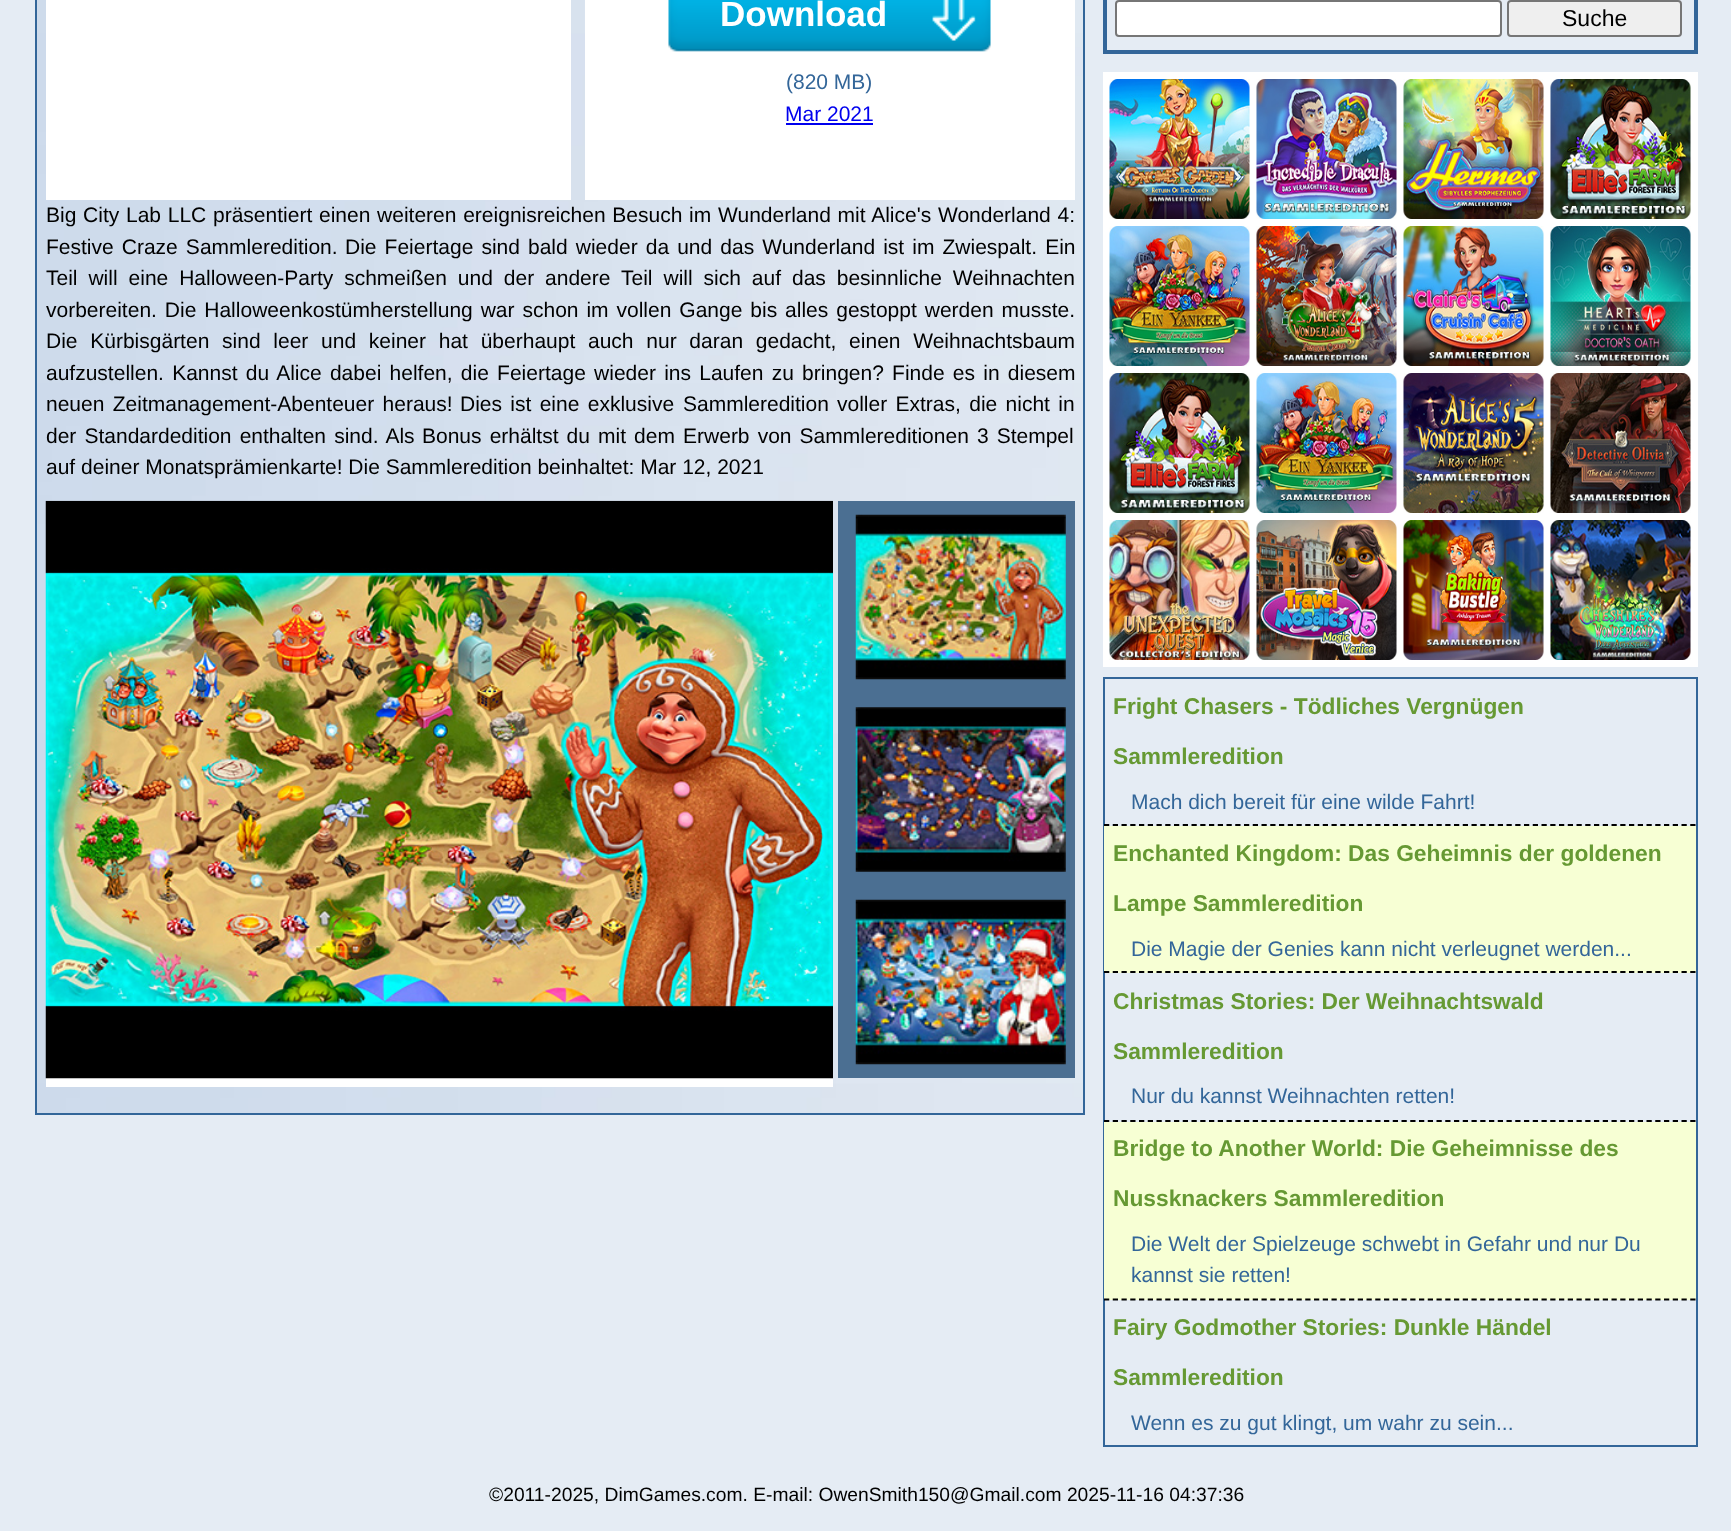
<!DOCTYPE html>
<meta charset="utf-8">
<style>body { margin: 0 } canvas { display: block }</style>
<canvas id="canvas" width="1731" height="1531"></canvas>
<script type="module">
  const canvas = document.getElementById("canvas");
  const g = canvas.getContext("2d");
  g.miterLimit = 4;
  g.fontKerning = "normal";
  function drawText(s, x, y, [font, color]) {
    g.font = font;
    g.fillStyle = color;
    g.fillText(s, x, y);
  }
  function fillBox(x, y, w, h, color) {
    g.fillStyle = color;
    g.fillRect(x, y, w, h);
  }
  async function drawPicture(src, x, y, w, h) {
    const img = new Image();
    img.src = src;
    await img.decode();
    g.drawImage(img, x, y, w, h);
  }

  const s1 = ["bold 35px Liberation Sans", "#FFFFFF"];
  const s2 = ["21px Liberation Sans", "#336699"];
  const s3 = ["21px Liberation Sans", "#0000EE"];
  const s4 = ["21px Liberation Sans", "#000000"];
  const s5 = ["23px Liberation Sans", "#000000"];
  const s6 = ["bold 22.75px Liberation Sans", "#669933"];
  const s7 = ["19.25px Liberation Sans", "#000000"];

  fillBox(0, 0, 1731, 1531, "#E5ECF4");
  await drawPicture("pic1.png", 37, 0, 1046, 1113);
  g.strokeStyle = "#336699";
  g.lineWidth = 2;
  g.strokeRect(36, -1, 1048, 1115);
  fillBox(46, 0, 525, 200, "#FFFFFF");
  fillBox(585, 0, 490, 200, "#FFFFFF");
  await drawPicture("pic2.png", 668, 0, 323, 52);
  drawText("Download", 720, 26, s1);
  drawText("(820 MB)", 786, 89, s2);
  drawText("Mar 2021", 785, 121, s3);
  fillBox(786, 123, 87, 2, "#0000EE");
  g.wordSpacing = "0.9px";
  drawText("Big City Lab LLC präsentiert einen weiteren ereignisreichen Besuch im Wunderland mit Alice's Wonderland 4:", 46, 222, s4);
  g.wordSpacing = "2.25px";
  drawText("Festive Craze Sammleredition.", 46, 254, s4);
  drawText("Die Feiertage sind bald wieder da und das Wunderland ist im Zwiespalt. Ein", 345, 254, s4);
  g.wordSpacing = "5.1px";
  drawText("Teil will eine Halloween-Party schmeißen und der andere Teil will sich auf das besinnliche Weihnachten", 46, 285, s4);
  g.wordSpacing = "2.1px";
  drawText("vorbereiten. Die Halloweenkostümherstellung war schon im vollen Gange bis alles gestoppt werden musste.", 46, 317, s4);
  g.wordSpacing = "6.9px";
  drawText("Die Kürbisgärten sind leer und keiner hat überhaupt auch nur daran gedacht, einen Weihnachtsbaum", 46, 348, s4);
  g.wordSpacing = "2.4px";
  drawText("aufzustellen. Kannst du Alice dabei helfen, die Feiertage wieder ins Laufen zu bringen? Finde es in diesem", 46, 380, s4);
  g.wordSpacing = "2.5px";
  drawText("neuen Zeitmanagement-Abenteuer heraus!", 46, 411, s4);
  drawText("Dies ist eine exklusive", 460, 411, s4);
  g.wordSpacing = "0px";
  drawText("Sammleredition", 683, 411, s4);
  g.wordSpacing = "2.5px";
  drawText("voller Extras, die nicht in", 837, 411, s4);
  g.wordSpacing = "2.25px";
  drawText("der Standardedition enthalten sind. Als", 46, 443, s4);
  drawText("Bonus erhältst du mit dem Erwerb von Sammlereditionen 3 Stempel", 422, 443, s4);
  g.wordSpacing = "0px";
  drawText("auf deiner Monatsprämienkarte! Die Sammleredition beinhaltet: Mar 12, 2021", 46, 474, s4);
  fillBox(46, 1078, 787, 9, "#FFFFFF");
  await drawPicture("pic3.png", 45, 500, 788, 579);
  fillBox(838, 501, 237, 577, "#4B6F92");
  await drawPicture("pic4.png", 855, 514, 211, 166);
  await drawPicture("pic5.png", 855, 707, 211, 165);
  await drawPicture("pic6.png", 855, 899, 211, 166);
  g.lineWidth = 4;
  g.strokeRect(1105, -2, 591, 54);
  g.fillStyle = "#FFFFFF";
  g.beginPath();
  g.roundRect(1116, 1, 385, 35, 3);
  g.fill();
  g.strokeStyle = "#767676";
  g.lineWidth = 2;
  g.stroke();
  g.fillStyle = "#EFEFEF";
  g.beginPath();
  g.roundRect(1508, 1, 173, 35, 3);
  g.fill();
  g.stroke();
  drawText("Suche", 1562, 26, s5);
  fillBox(1103, 72, 595, 147, "#FFFFFF");
  await drawPicture("pic7.png", 1109, 79, 141, 140);
  await drawPicture("pic8.png", 1256, 79, 141, 140);
  await drawPicture("pic9.png", 1403, 79, 141, 140);
  await drawPicture("pic10.png", 1550, 79, 141, 140);
  fillBox(1103, 219, 595, 147, "#FFFFFF");
  await drawPicture("pic11.png", 1109, 226, 141, 140);
  await drawPicture("pic12.png", 1256, 226, 141, 140);
  await drawPicture("pic13.png", 1403, 226, 141, 140);
  await drawPicture("pic14.png", 1550, 226, 141, 140);
  fillBox(1103, 366, 595, 147, "#FFFFFF");
  await drawPicture("pic15.png", 1109, 373, 141, 140);
  await drawPicture("pic16.png", 1256, 373, 141, 140);
  await drawPicture("pic17.png", 1403, 373, 141, 140);
  await drawPicture("pic18.png", 1550, 373, 141, 140);
  fillBox(1103, 513, 595, 154, "#FFFFFF");
  await drawPicture("pic19.png", 1109, 520, 141, 140);
  await drawPicture("pic20.png", 1256, 520, 141, 140);
  await drawPicture("pic21.png", 1403, 520, 141, 140);
  await drawPicture("pic22.png", 1550, 520, 141, 140);
  g.strokeStyle = "#336699";
  g.strokeRect(1104, 678, 593, 768);
  g.beginPath();
  g.moveTo(1104, 825);
  g.lineTo(1696, 825);
  g.strokeStyle = "#000000";
  g.lineWidth = 1.8;
  g.setLineDash([5.25, 3.5]);
  g.stroke();
  drawText("Fright Chasers - Tödliches Vergnügen", 1113, 714, s6);
  drawText("Sammleredition", 1113, 764, s6);
  drawText("Mach dich bereit für eine wilde Fahrt!", 1131, 809, s2);
  fillBox(1104, 826, 592, 147, "#F7FFD4");
  g.beginPath();
  g.moveTo(1104, 972);
  g.lineTo(1696, 972);
  g.stroke();
  drawText("Enchanted Kingdom: Das Geheimnis der goldenen", 1113, 861, s6);
  drawText("Lampe Sammleredition", 1113, 911, s6);
  drawText("Die Magie der Genies kann nicht verleugnet werden...", 1131, 956, s2);
  g.beginPath();
  g.moveTo(1104, 1121);
  g.lineTo(1696, 1121);
  g.stroke();
  drawText("Christmas Stories: Der Weihnachtswald", 1113, 1009, s6);
  drawText("Sammleredition", 1113, 1059, s6);
  drawText("Nur du kannst Weihnachten retten!", 1131, 1103, s2);
  fillBox(1104, 1122, 592, 178, "#F7FFD4");
  g.beginPath();
  g.moveTo(1104, 1299.5);
  g.lineTo(1696, 1299.5);
  g.stroke();
  drawText("Bridge to Another World: Die Geheimnisse des", 1113, 1156, s6);
  drawText("Nussknackers Sammleredition", 1113, 1206, s6);
  drawText("Die Welt der Spielzeuge schwebt in Gefahr und nur Du", 1131, 1251, s2);
  drawText("kannst sie retten!", 1131, 1282, s2);
  drawText("Fairy Godmother Stories: Dunkle Händel", 1113, 1335, s6);
  drawText("Sammleredition", 1113, 1385, s6);
  drawText("Wenn es zu gut klingt, um wahr zu sein...", 1131, 1430, s2);
  drawText("©2011-2025, DimGames.com. E-mail: OwenSmith150@Gmail.com 2025-11-16 04:37:36", 489, 1501, s7);
</script>
